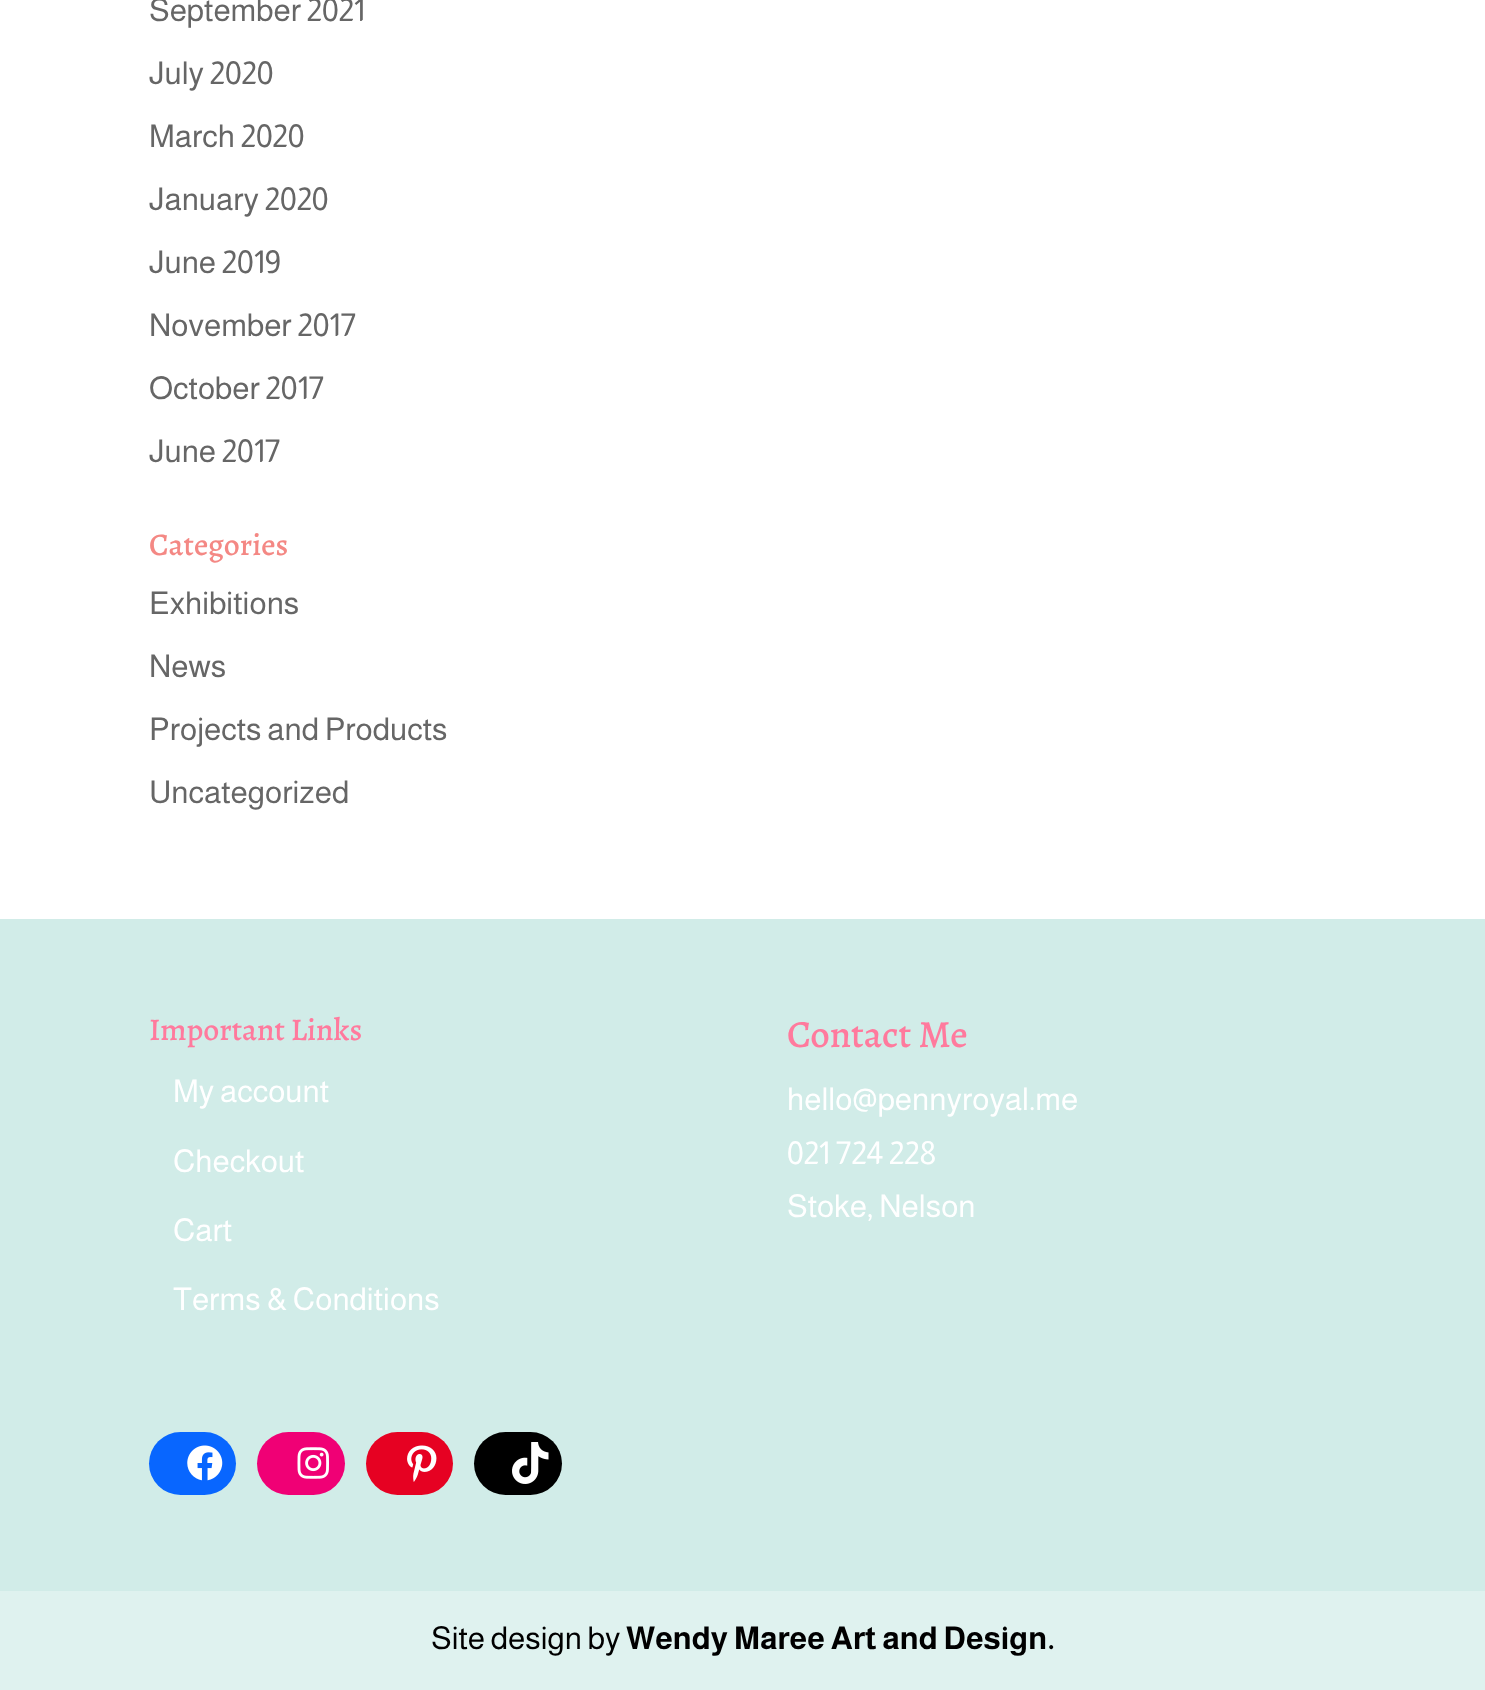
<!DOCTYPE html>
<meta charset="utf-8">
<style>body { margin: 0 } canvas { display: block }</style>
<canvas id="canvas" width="1485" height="1690"></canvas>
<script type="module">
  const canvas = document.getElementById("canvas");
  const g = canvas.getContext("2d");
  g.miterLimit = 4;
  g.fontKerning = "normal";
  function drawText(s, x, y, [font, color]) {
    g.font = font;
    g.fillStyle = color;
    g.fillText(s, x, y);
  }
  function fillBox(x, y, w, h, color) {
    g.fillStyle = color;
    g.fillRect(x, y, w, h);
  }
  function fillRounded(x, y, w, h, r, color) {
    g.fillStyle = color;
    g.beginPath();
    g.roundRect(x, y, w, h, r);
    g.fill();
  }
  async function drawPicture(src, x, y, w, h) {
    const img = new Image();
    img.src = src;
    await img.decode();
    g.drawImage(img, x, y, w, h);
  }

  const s1 = ["31.5px Almarai", "#666666"];
  const s2 = ["500 31.5px Alegreya", "#F48884"];
  const s3 = ["500 31.5px Alegreya", "#FF7A9D"];
  const s4 = ["31.5px Almarai", "#FFFFFF"];
  const s5 = ["500 38.5px Alegreya", "#FF7A9D"];
  const s6 = ["31.5px Almarai", "#000000"];
  const s7 = ["bold 31.5px Almarai", "#000000"];

  fillBox(0, 0, 1485, 1690, "#FFFFFF");
  drawText("September 2021", 149, 21, s1);
  drawText("July 2020", 149, 84, s1);
  drawText("March 2020", 149, 147, s1);
  drawText("January 2020", 149, 210, s1);
  drawText("June 2019", 149, 273, s1);
  drawText("November 2017", 149, 336, s1);
  drawText("October 2017", 149, 399, s1);
  drawText("June 2017", 149, 462, s1);
  drawText("Categories", 149, 555, s2);
  drawText("Exhibitions", 149, 614, s1);
  drawText("News", 149, 677, s1);
  drawText("Projects and Products", 149, 740, s1);
  drawText("Uncategorized", 149, 803, s1);
  fillBox(0, 919, 1485, 672, "#D1ECE8");
  drawText("Important Links", 149, 1040, s3);
  drawText("My account", 173, 1102, s4);
  drawText("Checkout", 173, 1172, s4);
  drawText("Cart", 173, 1241, s4);
  drawText("Terms & Conditions", 173, 1310, s4);
  drawText("Contact Me", 787, 1047, s5);
  drawText("hello@pennyroyal.me", 787, 1110, s4);
  drawText("021 724 228", 787, 1164, s4);
  drawText("Stoke, Nelson", 787, 1217, s4);
  fillRounded(149, 1432, 87, 63, 31.5, "#0866FF");
  await drawPicture("pic1.png", 187, 1445, 36, 36);
  fillRounded(257, 1432, 88, 63, 31.5, "#F00075");
  await drawPicture("pic2.png", 297, 1447, 32, 32);
  fillRounded(366, 1432, 87, 63, 31.5, "#E60122");
  await drawPicture("pic3.png", 407, 1445, 30, 37);
  fillRounded(474, 1432, 88, 63, 31.5, "#000000");
  await drawPicture("pic4.png", 512, 1442, 37, 42);
  fillBox(0, 1591, 1485, 99, "#DFF2EF");
  drawText("Site design by", 431, 1649, s6);
  drawText("Wendy Maree Art and Design.", 626, 1649, s7);
</script>
